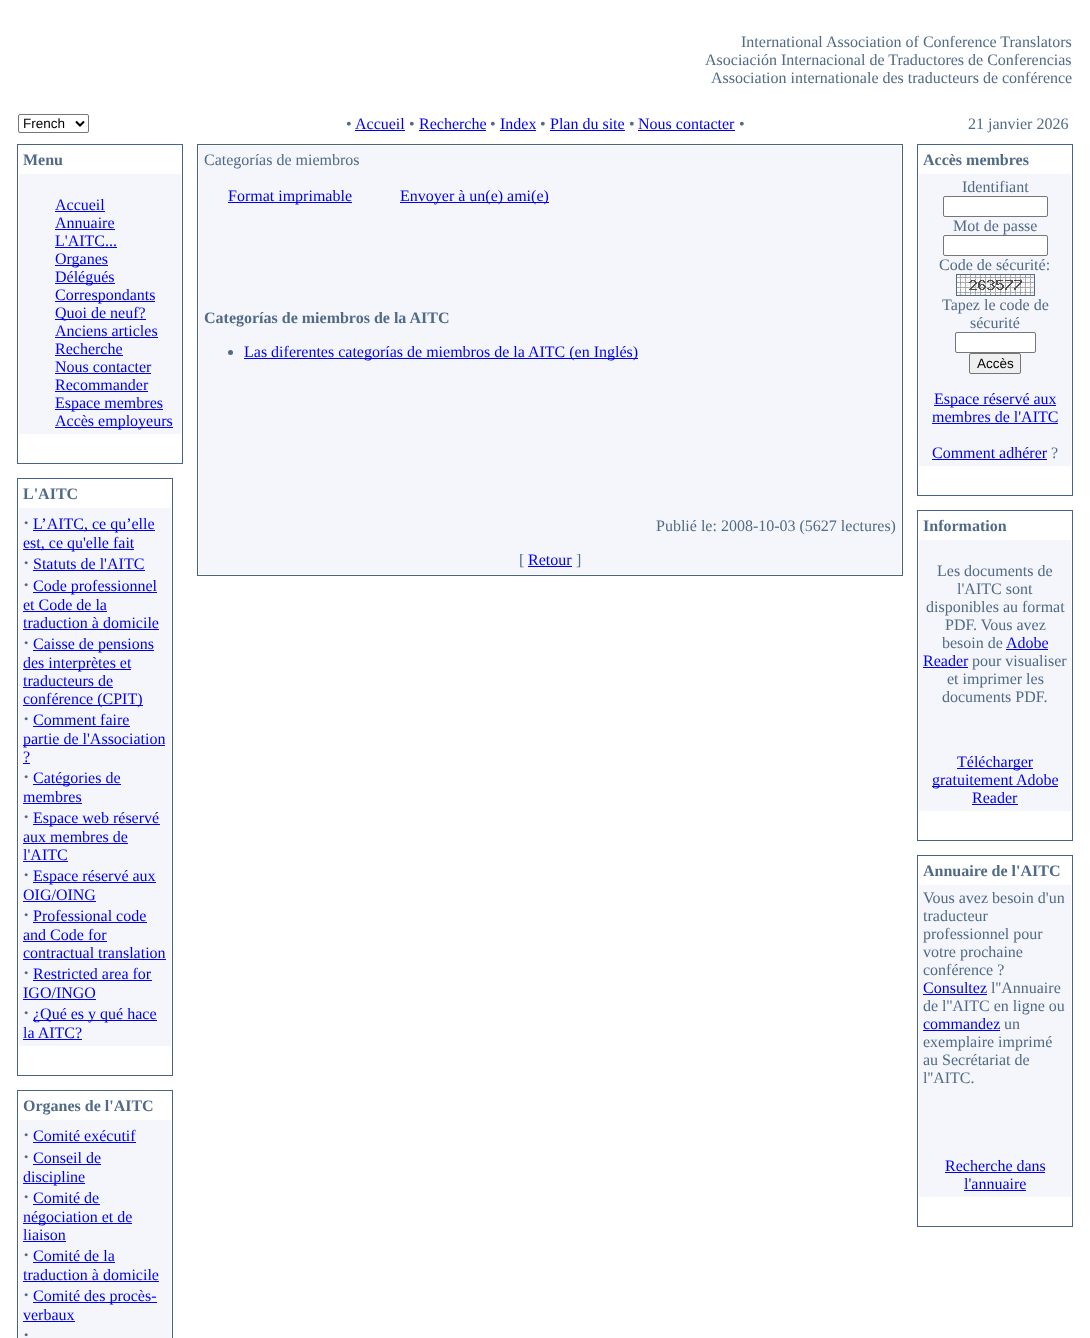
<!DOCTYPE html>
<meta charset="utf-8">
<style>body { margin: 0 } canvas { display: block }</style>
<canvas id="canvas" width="1090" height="1338"></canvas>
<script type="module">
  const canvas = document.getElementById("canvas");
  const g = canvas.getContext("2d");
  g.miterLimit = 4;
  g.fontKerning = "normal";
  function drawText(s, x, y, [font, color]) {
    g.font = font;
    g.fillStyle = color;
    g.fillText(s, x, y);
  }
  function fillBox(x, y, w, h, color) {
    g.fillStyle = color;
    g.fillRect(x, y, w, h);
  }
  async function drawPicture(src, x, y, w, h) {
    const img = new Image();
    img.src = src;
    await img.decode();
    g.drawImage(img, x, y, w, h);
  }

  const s1 = ["16px Liberation Serif", "#516A88"];
  const s2 = ["13.5px Liberation Sans", "#000000"];
  const s3 = ["16px Liberation Serif", "#0000EE"];
  const s4 = ["bold 16px Liberation Serif", "#516A88"];
  const s5 = ["bold 19px Liberation Serif", "#516A88"];

  fillBox(0, 0, 1090, 1338, "#FFFFFF");
  drawText("International", 741, 47, s1);
  drawText("Association of Conference Translators", 826, 47, s1);
  drawText("Asociación Internacional de Traductores de Conferencias", 705, 65, s1);
  drawText("Association internationale des traducteurs de conférence", 711, 83, s1);
  g.beginPath();
  g.roundRect(18.5, 114.5, 70, 18, 1.5);
  g.strokeStyle = "#767676";
  g.stroke();
  g.beginPath();
  g.moveTo(76, 121.5);
  g.lineTo(80, 125.5);
  g.lineTo(84, 121.5);
  g.strokeStyle = "#000000";
  g.lineWidth = 2;
  g.stroke();
  drawText("French", 23, 128, s2);
  drawText("•", 346, 129, s1);
  drawText("Accueil", 355, 129, s3);
  fillBox(355, 130, 50, 1, "#0000EE");
  drawText("•", 409, 129, s1);
  drawText("Recherche", 419, 129, s3);
  fillBox(419, 130, 67, 1, "#0000EE");
  drawText("•", 490, 129, s1);
  drawText("Index", 500, 129, s3);
  fillBox(500, 130, 36, 1, "#0000EE");
  drawText("•", 540, 129, s1);
  drawText("Plan du site", 550, 129, s3);
  fillBox(550, 130, 75, 1, "#0000EE");
  drawText("•", 629, 129, s1);
  drawText("Nous contacter", 638, 129, s3);
  fillBox(638, 130, 97, 1, "#0000EE");
  drawText("•", 739, 129, s1);
  drawText("21 janvier 2026", 968, 129, s1);
  fillBox(17, 144, 166, 320, "#486386");
  fillBox(18, 145, 164, 318, "#FFFFFF");
  drawText("Menu", 23, 165, s4);
  fillBox(19, 174, 162, 260, "#F4F6FB");
  drawText("Accueil", 55, 210, s3);
  fillBox(55, 211, 50, 1, "#0000EE");
  drawText("Annuaire", 55, 228, s3);
  fillBox(55, 229, 60, 1, "#0000EE");
  drawText("L'AITC...", 55, 246, s3);
  fillBox(55, 247, 62, 1, "#0000EE");
  fillBox(55, 265, 53, 1, "#0000EE");
  drawText("Organes", 55, 264, s3);
  fillBox(55, 283, 60, 1, "#0000EE");
  drawText("Délégués", 55, 282, s3);
  fillBox(55, 301, 100, 1, "#0000EE");
  drawText("Correspondants", 55, 300, s3);
  fillBox(55, 319, 91, 1, "#0000EE");
  drawText("Quoi de neuf?", 55, 318, s3);
  drawText("Anciens articles", 55, 336, s3);
  fillBox(55, 337, 103, 1, "#0000EE");
  drawText("Recherche", 55, 354, s3);
  fillBox(55, 355, 68, 1, "#0000EE");
  drawText("Nous contacter", 55, 372, s3);
  fillBox(55, 373, 96, 1, "#0000EE");
  drawText("Recommander", 55, 390, s3);
  fillBox(55, 391, 93, 1, "#0000EE");
  fillBox(55, 409, 108, 1, "#0000EE");
  drawText("Espace membres", 55, 408, s3);
  fillBox(55, 427, 118, 1, "#0000EE");
  drawText("Accès employeurs", 55, 426, s3);
  fillBox(17, 478, 156, 598, "#486386");
  fillBox(18, 479, 154, 596, "#FFFFFF");
  drawText("L'AITC", 23, 499, s4);
  fillBox(19, 508, 152, 538, "#F4F6FB");
  drawText("·", 23, 529, s5);
  fillBox(33, 530, 122, 1, "#0000EE");
  drawText("L’AITC, ce qu’elle", 33, 529, s3);
  fillBox(23, 549, 111, 1, "#0000EE");
  drawText("est, ce qu'elle fait", 23, 548, s3);
  drawText("·", 23, 569, s5);
  drawText("Statuts de l'AITC", 33, 569, s3);
  fillBox(33, 570, 112, 1, "#0000EE");
  drawText("·", 23, 591, s5);
  fillBox(33, 592, 124, 1, "#0000EE");
  drawText("Code professionnel", 33, 591, s3);
  drawText("et Code de la", 23, 610, s3);
  fillBox(23, 611, 84, 1, "#0000EE");
  drawText("traduction à domicile", 23, 628, s3);
  fillBox(23, 629, 136, 1, "#0000EE");
  drawText("·", 23, 649, s5);
  fillBox(33, 650, 121, 1, "#0000EE");
  drawText("Caisse de pensions", 33, 649, s3);
  fillBox(23, 669, 108, 1, "#0000EE");
  drawText("des interprètes et", 23, 668, s3);
  drawText("traducteurs de", 23, 686, s3);
  fillBox(23, 687, 90, 1, "#0000EE");
  fillBox(23, 705, 120, 1, "#0000EE");
  drawText("conférence (CPIT)", 23, 704, s3);
  drawText("·", 23, 725, s5);
  drawText("Comment faire", 33, 725, s3);
  fillBox(33, 726, 97, 1, "#0000EE");
  fillBox(23, 745, 142, 1, "#0000EE");
  drawText("partie de l'Association", 23, 744, s3);
  drawText("?", 23, 762, s3);
  fillBox(23, 763, 7, 1, "#0000EE");
  drawText("·", 23, 783, s5);
  fillBox(33, 784, 88, 1, "#0000EE");
  drawText("Catégories de", 33, 783, s3);
  drawText("membres", 23, 802, s3);
  fillBox(23, 803, 59, 1, "#0000EE");
  drawText("·", 23, 823, s5);
  fillBox(33, 824, 127, 1, "#0000EE");
  drawText("Espace web réservé", 33, 823, s3);
  drawText("aux membres de", 23, 842, s3);
  fillBox(23, 843, 105, 1, "#0000EE");
  drawText("l'AITC", 23, 860, s3);
  fillBox(23, 861, 45, 1, "#0000EE");
  drawText("·", 23, 881, s5);
  fillBox(33, 882, 123, 1, "#0000EE");
  drawText("Espace réservé aux", 33, 881, s3);
  drawText("OIG/OING", 23, 900, s3);
  fillBox(23, 901, 73, 1, "#0000EE");
  drawText("·", 23, 921, s5);
  drawText("Professional code", 33, 921, s3);
  fillBox(33, 922, 114, 1, "#0000EE");
  drawText("and Code for", 23, 940, s3);
  fillBox(23, 941, 84, 1, "#0000EE");
  drawText("contractual translation", 23, 958, s3);
  fillBox(23, 959, 143, 1, "#0000EE");
  drawText("·", 23, 979, s5);
  drawText("Restricted area for", 33, 979, s3);
  fillBox(33, 980, 119, 1, "#0000EE");
  drawText("IGO/INGO", 23, 998, s3);
  fillBox(23, 999, 73, 1, "#0000EE");
  drawText("·", 23, 1019, s5);
  fillBox(33, 1020, 124, 1, "#0000EE");
  drawText("¿Qué es y qué hace", 33, 1019, s3);
  drawText("la AITC?", 23, 1038, s3);
  fillBox(23, 1039, 59, 1, "#0000EE");
  fillBox(17, 1090, 156, 248, "#486386");
  fillBox(18, 1091, 154, 247, "#FFFFFF");
  drawText("Organes de l'AITC", 23, 1111, s4);
  fillBox(19, 1120, 152, 218, "#F4F6FB");
  drawText("·", 23, 1141, s5);
  drawText("Comité exécutif", 33, 1141, s3);
  fillBox(33, 1142, 103, 1, "#0000EE");
  drawText("·", 23, 1163, s5);
  drawText("Conseil de", 33, 1163, s3);
  fillBox(33, 1164, 68, 1, "#0000EE");
  fillBox(23, 1183, 62, 1, "#0000EE");
  drawText("discipline", 23, 1182, s3);
  drawText("·", 23, 1203, s5);
  drawText("Comité de", 33, 1203, s3);
  fillBox(33, 1204, 67, 1, "#0000EE");
  fillBox(23, 1223, 109, 1, "#0000EE");
  drawText("négociation et de", 23, 1222, s3);
  drawText("liaison", 23, 1240, s3);
  fillBox(23, 1241, 43, 1, "#0000EE");
  drawText("·", 23, 1261, s5);
  drawText("Comité de la", 33, 1261, s3);
  fillBox(33, 1262, 82, 1, "#0000EE");
  drawText("traduction à domicile", 23, 1280, s3);
  fillBox(23, 1281, 136, 1, "#0000EE");
  drawText("·", 23, 1301, s5);
  fillBox(33, 1302, 124, 1, "#0000EE");
  drawText("Comité des procès-", 33, 1301, s3);
  drawText("verbaux", 23, 1320, s3);
  fillBox(23, 1321, 52, 1, "#0000EE");
  drawText("·", 23, 1341, s5);
  fillBox(197, 144, 706, 432, "#486386");
  fillBox(198, 145, 704, 430, "#FFFFFF");
  fillBox(199, 146, 702, 428, "#F4F6FB");
  drawText("Categorías de miembros", 204, 165, s1);
  fillBox(228, 202, 124, 1, "#0000EE");
  drawText("Format imprimable", 228, 201, s3);
  fillBox(400, 202, 149, 1, "#0000EE");
  drawText("Envoyer à un(e) ami(e)", 400, 201, s3);
  drawText("Categorías de miembros de la AITC", 204, 323, s4);
  g.beginPath();
  g.arc(230.5, 352.5, 2.5, 0, Math.PI * 2);
  g.fill();
  fillBox(244, 358, 394, 1, "#0000EE");
  drawText("Las diferentes categorías de miembros de la AITC (en Inglés)", 244, 357, s3);
  drawText("Publié le: 2008-10-03 (5627 lectures)", 656, 531, s1);
  drawText("[", 519, 565, s1);
  drawText("Retour", 528, 565, s3);
  fillBox(528, 566, 44, 1, "#0000EE");
  drawText("]", 576, 565, s1);
  fillBox(917, 144, 156, 352, "#486386");
  fillBox(918, 145, 154, 350, "#FFFFFF");
  drawText("Accès membres", 923, 165, s4);
  fillBox(919, 174, 152, 292, "#F4F6FB");
  drawText("Identifiant", 962, 192, s1);
  g.fillStyle = "#FFFFFF";
  g.beginPath();
  g.roundRect(943.5, 196.5, 104, 20, 1.5);
  g.fill();
  g.strokeStyle = "#767676";
  g.lineWidth = 1;
  g.stroke();
  drawText("Mot de passe", 953, 231, s1);
  g.fillStyle = "#FFFFFF";
  g.beginPath();
  g.roundRect(943.5, 235.5, 104, 20, 1.5);
  g.fill();
  g.stroke();
  drawText("Code de sécurité:", 939, 270, s1);
  g.strokeStyle = "#516A88";
  g.strokeRect(956.5, 274.5, 78, 21);
  await drawPicture("pic1.png", 957, 275, 77, 20);
  drawText("Tapez le code de", 942, 310, s1);
  drawText("sécurité", 970, 328, s1);
  g.fillStyle = "#FFFFFF";
  g.beginPath();
  g.roundRect(955.5, 332.5, 80, 20, 1.5);
  g.fill();
  g.strokeStyle = "#767676";
  g.stroke();
  g.fillStyle = "#EFEFEF";
  g.beginPath();
  g.roundRect(969.5, 353.5, 51, 20, 1.5);
  g.fill();
  g.stroke();
  drawText("Accès", 977, 368, s2);
  fillBox(934, 405, 122, 1, "#0000EE");
  drawText("Espace réservé aux", 934, 404, s3);
  drawText("membres de l'AITC", 932, 422, s3);
  fillBox(932, 423, 126, 1, "#0000EE");
  drawText("Comment adhérer", 932, 458, s3);
  fillBox(932, 459, 115, 1, "#0000EE");
  drawText("?", 1051, 458, s1);
  fillBox(917, 510, 156, 331, "#486386");
  fillBox(918, 511, 154, 329, "#FFFFFF");
  drawText("Information", 923, 531, s4);
  fillBox(919, 540, 152, 271, "#F4F6FB");
  drawText("Les documents de", 937, 576, s1);
  drawText("l'AITC sont", 957, 594, s1);
  drawText("disponibles au format", 926, 612, s1);
  drawText("PDF. Vous avez", 945, 630, s1);
  drawText("besoin de", 942, 648, s1);
  drawText("Adobe", 1006, 648, s3);
  fillBox(1006, 649, 42, 1, "#0000EE");
  drawText("Reader", 923, 666, s3);
  fillBox(923, 667, 45, 1, "#0000EE");
  drawText("pour visualiser", 972, 666, s1);
  drawText("et imprimer les", 947, 684, s1);
  drawText("documents PDF.", 942, 702, s1);
  fillBox(957, 768, 76, 1, "#0000EE");
  drawText("Télécharger", 957, 767, s3);
  fillBox(932, 786, 126, 1, "#0000EE");
  drawText("gratuitement Adobe", 932, 785, s3);
  drawText("Reader", 972, 803, s3);
  fillBox(972, 804, 46, 1, "#0000EE");
  fillBox(917, 855, 156, 372, "#486386");
  fillBox(918, 856, 154, 370, "#FFFFFF");
  drawText("Annuaire de l'AITC", 923, 876, s4);
  fillBox(919, 885, 152, 312, "#F4F6FB");
  drawText("Vous avez besoin d'un", 923, 903, s1);
  drawText("traducteur", 923, 921, s1);
  drawText("professionnel pour", 923, 939, s1);
  drawText("votre prochaine", 923, 957, s1);
  drawText("conférence ?", 923, 975, s1);
  drawText("Consultez", 923, 993, s3);
  fillBox(923, 994, 64, 1, "#0000EE");
  drawText("l''Annuaire", 991, 993, s1);
  drawText("de l''AITC en ligne ou", 923, 1011, s1);
  drawText("commandez", 923, 1029, s3);
  fillBox(923, 1030, 77, 1, "#0000EE");
  drawText("un", 1004, 1029, s1);
  drawText("exemplaire imprimé", 923, 1047, s1);
  drawText("au Secrétariat de", 923, 1065, s1);
  drawText("l''AITC.", 923, 1083, s1);
  drawText("Recherche dans", 945, 1171, s3);
  fillBox(945, 1172, 100, 1, "#0000EE");
  drawText("l'annuaire", 964, 1189, s3);
  fillBox(964, 1190, 62, 1, "#0000EE");
</script>
